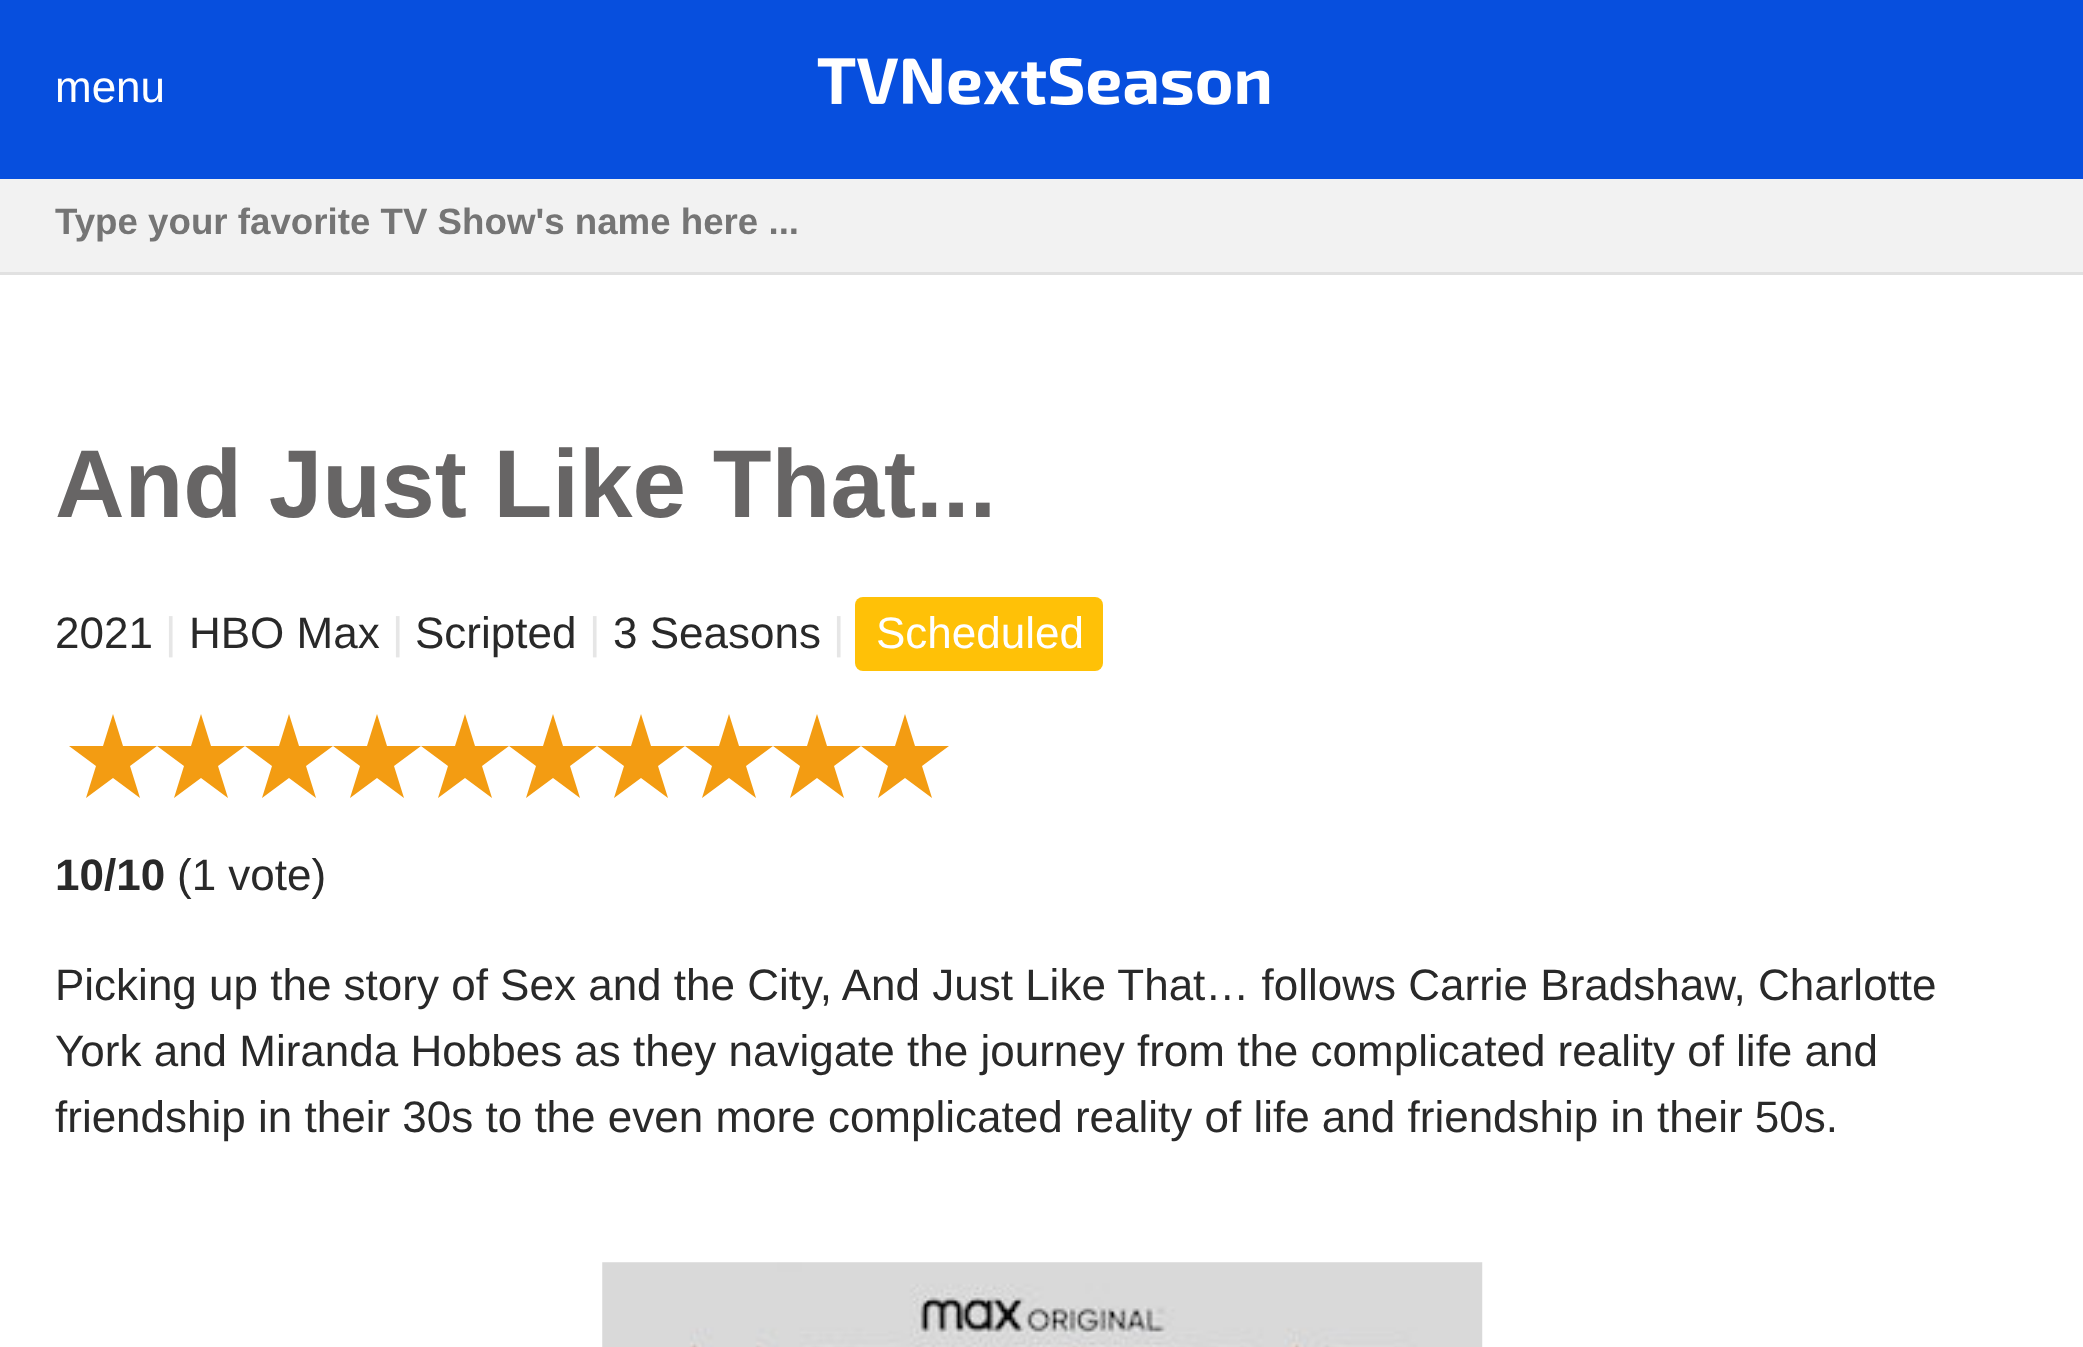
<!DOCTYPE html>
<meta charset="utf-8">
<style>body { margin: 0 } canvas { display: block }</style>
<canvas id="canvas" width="2083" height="1347"></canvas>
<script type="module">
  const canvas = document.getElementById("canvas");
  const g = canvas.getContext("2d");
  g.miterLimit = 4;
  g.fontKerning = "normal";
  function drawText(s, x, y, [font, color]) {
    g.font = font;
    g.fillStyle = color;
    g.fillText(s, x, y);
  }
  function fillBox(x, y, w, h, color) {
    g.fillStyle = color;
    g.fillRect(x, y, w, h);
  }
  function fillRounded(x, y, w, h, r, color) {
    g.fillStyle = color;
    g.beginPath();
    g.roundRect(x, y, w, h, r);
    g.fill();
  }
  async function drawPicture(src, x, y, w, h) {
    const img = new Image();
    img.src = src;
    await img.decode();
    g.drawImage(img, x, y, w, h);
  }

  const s1 = ["44px Liberation Sans", "#FFFFFF"];
  const s2 = ["bold 36.7px Liberation Sans", "#757575"];
  const s3 = ["bold 96.25px Liberation Sans", "#676565"];
  const s4 = ["44px Liberation Sans", "#292929"];
  const s5 = ["44px Liberation Sans", "#E6E6E6"];
  const s6 = ["bold 44px Liberation Sans", "#292929"];

  fillBox(0, 0, 2083, 1347, "#FFFFFF");
  fillBox(0, 0, 2083, 179, "#074FDE");
  drawText("menu", 55, 102, s1);
  await drawPicture("pic1.png", 817, 57, 453, 49);
  fillBox(0, 179, 2083, 93, "#F2F2F2");
  fillBox(0, 272, 2083, 3, "#E1E1E1");
  drawText("Type your favorite TV Show's name here ...", 55, 234, s2);
  drawText("And Just Like That...", 55, 517, s3);
  drawText("2021", 55, 648, s4);
  drawText("|", 165, 648, s5);
  drawText("HBO Max", 189, 648, s4);
  drawText("|", 392, 648, s5);
  drawText("Scripted", 415, 648, s4);
  drawText("|", 589, 648, s5);
  drawText("3 Seasons", 613, 648, s4);
  drawText("|", 833, 648, s5);
  fillRounded(855, 597, 248, 74, 8, "#FFC107");
  drawText("Scheduled", 876, 648, s1);
  g.fillStyle = "#F39C12";
  g.beginPath();
  g.moveTo(113, 714);
  g.lineTo(123, 746);
  g.lineTo(157, 746);
  g.lineTo(130, 766);
  g.lineTo(140, 798);
  g.lineTo(113, 778);
  g.lineTo(86, 798);
  g.lineTo(96, 766);
  g.lineTo(69, 746);
  g.lineTo(103, 746);
  g.closePath();
  g.fill();
  g.beginPath();
  g.moveTo(201, 714);
  g.lineTo(211, 746);
  g.lineTo(245, 746);
  g.lineTo(218, 766);
  g.lineTo(228, 798);
  g.lineTo(201, 778);
  g.lineTo(174, 798);
  g.lineTo(184, 766);
  g.lineTo(157, 746);
  g.lineTo(191, 746);
  g.closePath();
  g.fill();
  g.beginPath();
  g.moveTo(289, 714);
  g.lineTo(299, 746);
  g.lineTo(333, 746);
  g.lineTo(306, 766);
  g.lineTo(316, 798);
  g.lineTo(289, 778);
  g.lineTo(262, 798);
  g.lineTo(272, 766);
  g.lineTo(245, 746);
  g.lineTo(279, 746);
  g.closePath();
  g.fill();
  g.beginPath();
  g.moveTo(377, 714);
  g.lineTo(387, 746);
  g.lineTo(421, 746);
  g.lineTo(394, 766);
  g.lineTo(404, 798);
  g.lineTo(377, 778);
  g.lineTo(350, 798);
  g.lineTo(360, 766);
  g.lineTo(333, 746);
  g.lineTo(367, 746);
  g.closePath();
  g.fill();
  g.beginPath();
  g.moveTo(465, 714);
  g.lineTo(475, 746);
  g.lineTo(509, 746);
  g.lineTo(482, 766);
  g.lineTo(492, 798);
  g.lineTo(465, 778);
  g.lineTo(438, 798);
  g.lineTo(448, 766);
  g.lineTo(421, 746);
  g.lineTo(455, 746);
  g.closePath();
  g.fill();
  g.beginPath();
  g.moveTo(553, 714);
  g.lineTo(563, 746);
  g.lineTo(597, 746);
  g.lineTo(570, 766);
  g.lineTo(580, 798);
  g.lineTo(553, 778);
  g.lineTo(526, 798);
  g.lineTo(536, 766);
  g.lineTo(509, 746);
  g.lineTo(543, 746);
  g.closePath();
  g.fill();
  g.beginPath();
  g.moveTo(641, 714);
  g.lineTo(651, 746);
  g.lineTo(685, 746);
  g.lineTo(658, 766);
  g.lineTo(668, 798);
  g.lineTo(641, 778);
  g.lineTo(614, 798);
  g.lineTo(624, 766);
  g.lineTo(597, 746);
  g.lineTo(631, 746);
  g.closePath();
  g.fill();
  g.beginPath();
  g.moveTo(729, 714);
  g.lineTo(739, 746);
  g.lineTo(773, 746);
  g.lineTo(746, 766);
  g.lineTo(756, 798);
  g.lineTo(729, 778);
  g.lineTo(702, 798);
  g.lineTo(712, 766);
  g.lineTo(685, 746);
  g.lineTo(719, 746);
  g.closePath();
  g.fill();
  g.beginPath();
  g.moveTo(817, 714);
  g.lineTo(827, 746);
  g.lineTo(861, 746);
  g.lineTo(834, 766);
  g.lineTo(844, 798);
  g.lineTo(817, 778);
  g.lineTo(790, 798);
  g.lineTo(800, 766);
  g.lineTo(773, 746);
  g.lineTo(807, 746);
  g.closePath();
  g.fill();
  g.beginPath();
  g.moveTo(905, 714);
  g.lineTo(915, 746);
  g.lineTo(949, 746);
  g.lineTo(922, 766);
  g.lineTo(932, 798);
  g.lineTo(905, 778);
  g.lineTo(878, 798);
  g.lineTo(888, 766);
  g.lineTo(861, 746);
  g.lineTo(895, 746);
  g.closePath();
  g.fill();
  drawText("10/10", 55, 890, s6);
  drawText("(1 vote)", 177, 890, s4);
  drawText("Picking up the story of Sex and the City, And Just Like That… follows Carrie Bradshaw, Charlotte", 55, 1000, s4);
  drawText("York and Miranda Hobbes as they navigate the journey from the complicated reality of life and", 55, 1066, s4);
  drawText("friendship in their 30s to the even more complicated reality of life and friendship in their 50s.", 55, 1132, s4);
  await drawPicture("pic2.png", 602, 1262, 881, 85);
</script>
